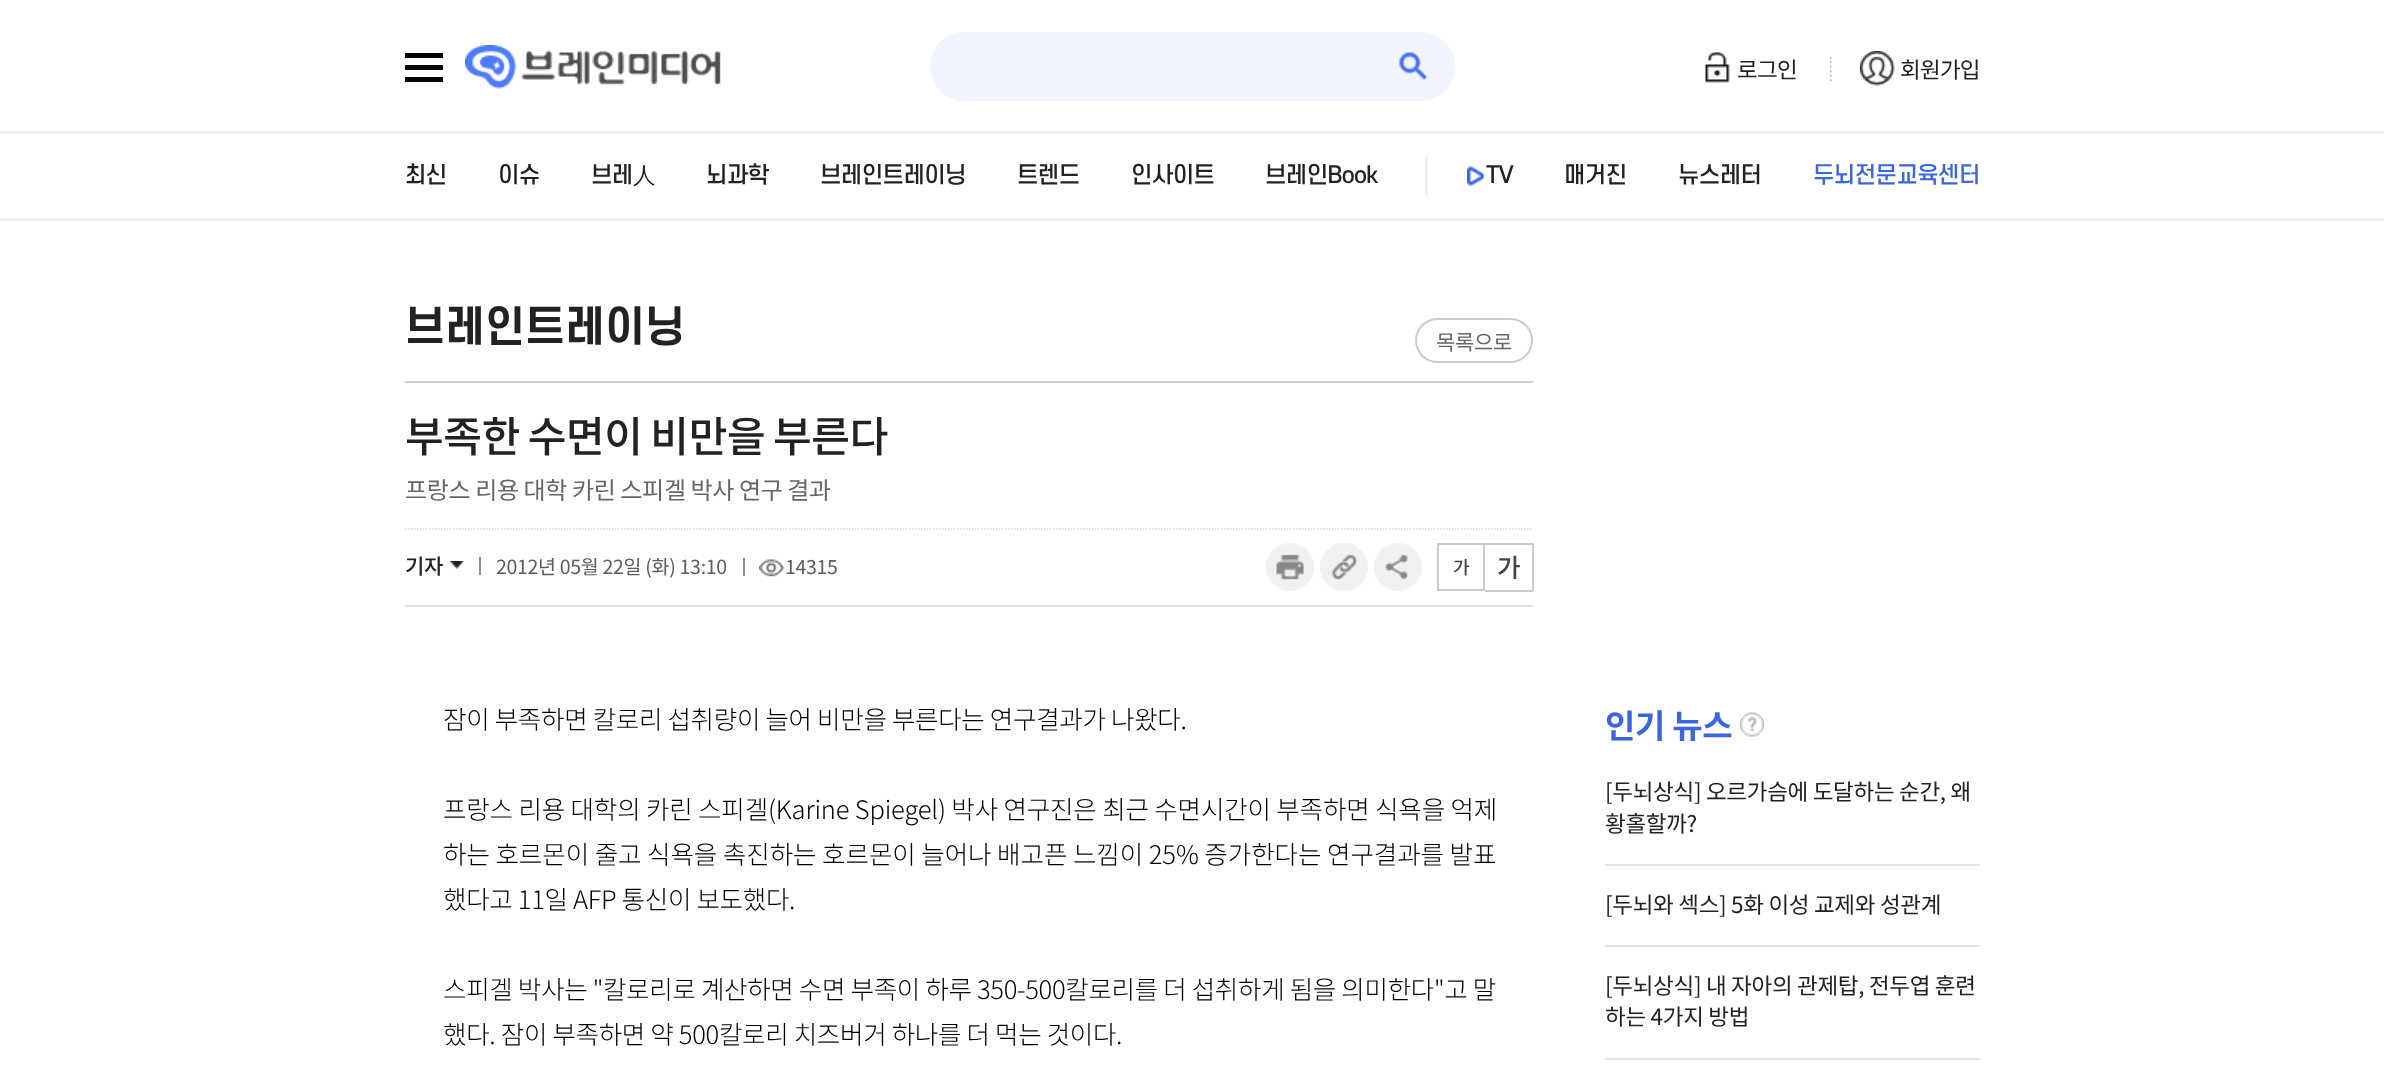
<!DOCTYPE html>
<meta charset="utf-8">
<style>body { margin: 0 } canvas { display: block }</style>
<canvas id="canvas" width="2384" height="1079"></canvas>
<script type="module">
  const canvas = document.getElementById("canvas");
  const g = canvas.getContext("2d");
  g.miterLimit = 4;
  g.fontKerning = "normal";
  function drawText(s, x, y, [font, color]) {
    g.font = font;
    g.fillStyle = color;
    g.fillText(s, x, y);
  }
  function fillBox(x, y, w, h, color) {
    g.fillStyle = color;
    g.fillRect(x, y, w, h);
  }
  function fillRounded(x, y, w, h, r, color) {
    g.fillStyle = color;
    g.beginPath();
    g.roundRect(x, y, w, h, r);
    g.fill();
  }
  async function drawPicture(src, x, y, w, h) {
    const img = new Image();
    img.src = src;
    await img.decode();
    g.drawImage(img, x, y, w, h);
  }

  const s1 = ["22.5px Noto Sans KR", "#222222"];
  const s2 = ["500 22.5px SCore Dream", "#222222"];
  const s3 = ["500 22.5px WenQuanYi Zen Hei", "#222222"];
  const s4 = ["500 22.5px SCore Dream", "#3D66DC"];
  const s5 = ["bold 42px SCore Dream", "#222222"];
  const s6 = ["21px Noto Sans KR", "#666666"];
  const s7 = ["500 42px Noto Sans KR", "#222222"];
  const s8 = ["24px Noto Sans KR", "#666666"];
  const s9 = ["500 21px Noto Sans KR", "#222222"];
  const s10 = ["19.5px Noto Sans KR", "#5D5D5D"];
  const s11 = ["500 18px Noto Sans KR", "#454545"];
  const s12 = ["500 25.5px Noto Sans KR", "#454545"];
  const s13 = ["300 25.5px Noto Sans KR", "#000000"];
  const s14 = ["bold 33px Noto Sans KR", "#3D66DC"];

  fillBox(0, 0, 2384, 1079, "#FFFFFF");
  fillBox(405, 53, 38, 5, "#000000");
  fillBox(405, 77, 38, 5, "#000000");
  fillBox(405, 65, 38, 5, "#000000");
  await drawPicture("pic1.png", 465, 45, 256, 44);
  fillRounded(930, 32, 525, 69, 34.5, "#F2F5FF");
  await drawPicture("pic2.png", 1399, 52, 29, 28);
  await drawPicture("pic3.png", 1705, 52, 25, 31);
  g.letterSpacing = "-0.75px";
  drawText("로그인", 1737, 78, s1);
  await drawPicture("pic4.png", 1860, 51, 35, 35);
  await drawPicture("pic5.png", 1830, 57, 2, 24);
  drawText("회원가입", 1900, 78, s1);
  fillBox(0, 131, 2384, 3, "#EFEFEF");
  fillBox(0, 218, 2384, 3, "#EFEFEF");
  drawText("최신", 405, 183, s2);
  drawText("이슈", 498, 183, s2);
  drawText("브레", 591, 183, s2);
  drawText("人", 633, 183, s3);
  drawText("뇌과학", 706, 183, s2);
  drawText("브레인트레이닝", 820, 183, s2);
  drawText("트렌드", 1017, 183, s2);
  drawText("인사이트", 1131, 183, s2);
  drawText("브레인Book", 1265, 183, s2);
  fillBox(1425, 155, 3, 42, "#EFEFEF");
  await drawPicture("pic6.png", 1467, 166, 18, 20);
  drawText("TV", 1486, 183, s2);
  drawText("매거진", 1564, 183, s2);
  drawText("뉴스레터", 1678, 183, s2);
  drawText("두뇌전문교육센터", 1813, 183, s4);
  g.letterSpacing = "-0.3px";
  drawText("브레인트레이닝", 405, 342, s5);
  fillBox(405, 381, 1128, 2, "#D2D2D2");
  fillBox(405, 605, 1128, 2, "#E3E3E3");
  g.beginPath();
  g.roundRect(1416, 319, 116, 43, 21.5);
  g.strokeStyle = "#CBCBCB";
  g.lineWidth = 2;
  g.stroke();
  drawText("목록으로", 1436, 350, s6);
  g.wordSpacing = "-1.5px";
  drawText("부족한 수면이 비만을 부른다", 405, 452, s7);
  g.wordSpacing = "-0.25px";
  drawText("프랑스 리용 대학 카린 스피겔 박사 연구 결과", 405, 499, s8);
  g.beginPath();
  g.moveTo(405, 529);
  g.lineTo(1533, 529);
  g.strokeStyle = "#D5D5D5";
  g.lineWidth = 1.5;
  g.setLineDash([1.5, 1.5]);
  g.stroke();
  g.wordSpacing = "0px";
  drawText("기자", 405, 574, s9);
  await drawPicture("pic7.png", 450, 561, 14, 8);
  fillBox(479, 557, 2, 18, "#8D8D8D");
  drawText("2012년 05월 22일 (화) 13:10", 496, 574, s10);
  fillBox(743, 558, 2, 18, "#8D8D8D");
  await drawPicture("pic8.png", 759, 559, 26, 18);
  drawText("14315", 785, 574, s10);
  await drawPicture("pic9.png", 1266, 543, 48, 48);
  await drawPicture("pic10.png", 1320, 543, 48, 48);
  await drawPicture("pic11.png", 1374, 543, 48, 48);
  g.strokeStyle = "#CBCBCB";
  g.lineWidth = 2;
  g.setLineDash([]);
  g.strokeRect(1438, 544, 46, 46);
  drawText("가", 1453, 574, s11);
  fillBox(1485, 543, 48, 2, "#CBCBCB");
  fillBox(1532, 543, 2, 48, "#CBCBCB");
  fillBox(1485, 590, 48, 2, "#CBCBCB");
  drawText("가", 1497, 577, s12);
  drawText("잠이 부족하면 칼로리 섭취량이 늘어 비만을 부른다는 연구결과가 나왔다.", 443, 729, s13);
  g.letterSpacing = "-0.15px";
  drawText("프랑스 리용 대학의 카린 스피겔(Karine Spiegel) 박사 연구진은 최근 수면시간이 부족하면 식욕을 억제", 443, 819, s13);
  g.letterSpacing = "-0.05px";
  drawText("하는 호르몬이 줄고 식욕을 촉진하는 호르몬이 늘어나 배고픈 느낌이 25% 증가한다는 연구결과를 발표", 443, 864, s13);
  g.letterSpacing = "-0.3px";
  drawText("했다고 11일 AFP 통신이 보도했다.", 443, 909, s13);
  drawText("스피겔 박사는 \"칼로리로 계산하면 수면 부족이 하루 350-500칼로리를 더 섭취하게 됨을 의미한다\"고 말", 443, 999, s13);
  drawText("했다. 잠이 부족하면 약 500칼로리 치즈버거 하나를 더 먹는 것이다.", 443, 1044, s13);
  drawText("인기 뉴스", 1605, 738, s14);
  await drawPicture("pic12.png", 1740, 712, 24, 25);
  fillBox(1605, 864, 375, 2, "#E3E3E3");
  drawText("[두뇌상식] 오르가슴에 도달하는 순간, 왜", 1605, 800, s1);
  drawText("황홀할까?", 1605, 832, s1);
  fillBox(1605, 945, 375, 2, "#E3E3E3");
  drawText("[두뇌와 섹스] 5화 이성 교제와 성관계", 1605, 913, s1);
  fillBox(1605, 1058, 375, 2, "#E3E3E3");
  drawText("[두뇌상식] 내 자아의 관제탑, 전두엽 훈련", 1605, 994, s1);
  drawText("하는 4가지 방법", 1605, 1025, s1);
</script>
